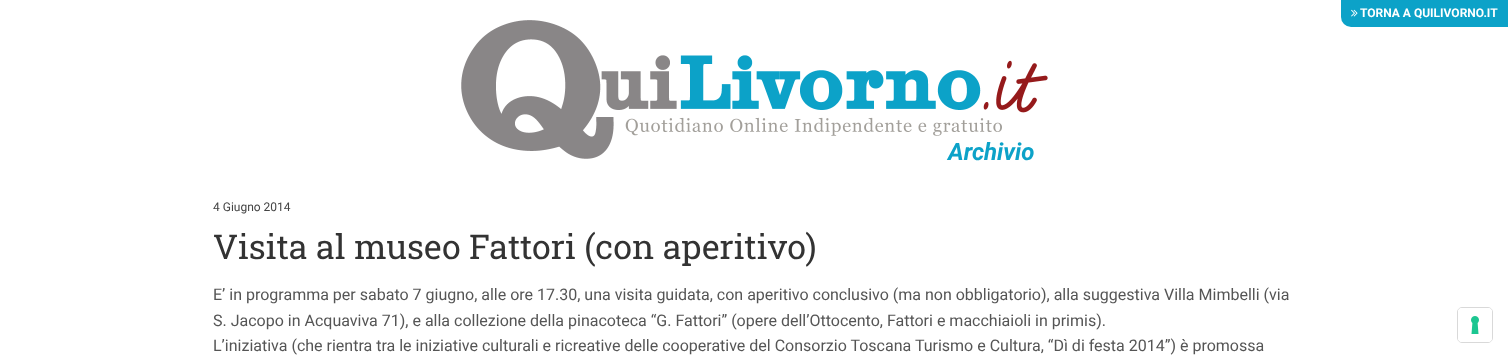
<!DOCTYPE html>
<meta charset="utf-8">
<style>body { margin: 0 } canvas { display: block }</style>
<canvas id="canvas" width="1508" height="358"></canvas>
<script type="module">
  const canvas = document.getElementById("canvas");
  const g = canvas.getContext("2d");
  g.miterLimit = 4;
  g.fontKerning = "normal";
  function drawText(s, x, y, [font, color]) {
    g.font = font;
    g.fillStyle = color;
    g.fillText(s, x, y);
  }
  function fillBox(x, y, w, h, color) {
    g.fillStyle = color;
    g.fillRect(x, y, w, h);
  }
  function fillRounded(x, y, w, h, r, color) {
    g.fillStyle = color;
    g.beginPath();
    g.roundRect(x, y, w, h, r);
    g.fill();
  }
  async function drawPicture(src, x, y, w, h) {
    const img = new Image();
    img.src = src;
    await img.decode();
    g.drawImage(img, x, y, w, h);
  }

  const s1 = ["bold 12px Roboto", "#FFFFFF"];
  const s2 = ["italic bold 24px Roboto", "#0CA2C8"];
  const s3 = ["12px Roboto", "#444444"];
  const s4 = ["34px Roboto Slab", "#333333"];
  const s5 = ["16px Roboto", "#555555"];

  fillBox(0, 0, 1508, 358, "#FFFFFF");
  g.fillStyle = "#0CA2C8";
  g.beginPath();
  g.roundRect(1341, 0, 167, 27, [0, 0, 0, 10]);
  g.fill();
  await drawPicture("pic1.png", 1351, 9, 7, 8);
  drawText("TORNA A QUILIVORNO.IT", 1360, 17, s1);
  await drawPicture("pic2.png", 461, 20, 587, 139);
  drawText("Archivio", 948, 160, s2);
  drawText("4 Giugno 2014", 213, 211, s3);
  drawText("Visita al museo Fattori (con aperitivo)", 213, 259, s4);
  drawText("E’ in programma per sabato 7 giugno, alle ore 17.30, una visita guidata, con aperitivo conclusivo (ma non obbligatorio), alla suggestiva Villa Mimbelli (via", 213, 300, s5);
  drawText("S. Jacopo in Acquaviva 71), e alla collezione della pinacoteca “G. Fattori” (opere dell’Ottocento, Fattori e macchiaioli in primis).", 213, 326, s5);
  drawText("L’iniziativa (che rientra tra le iniziative culturali e ricreative delle cooperative del Consorzio Toscana Turismo e Cultura, “Dì di festa 2014”) è promossa", 213, 351, s5);
  g.beginPath();
  g.roundRect(1457.5, 307.5, 35, 35, 4.5);
  g.strokeStyle = "#D9D9D9";
  g.stroke();
  fillRounded(1458, 308, 34, 34, 4, "#FFFFFF");
  await drawPicture("pic3.png", 1471, 316, 8, 18);
</script>
